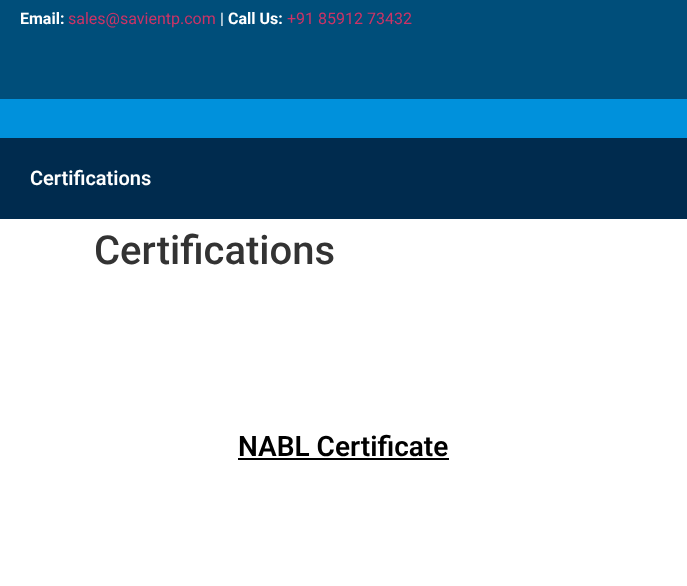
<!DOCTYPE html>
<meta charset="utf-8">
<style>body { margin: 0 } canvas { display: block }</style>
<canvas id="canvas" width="687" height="586"></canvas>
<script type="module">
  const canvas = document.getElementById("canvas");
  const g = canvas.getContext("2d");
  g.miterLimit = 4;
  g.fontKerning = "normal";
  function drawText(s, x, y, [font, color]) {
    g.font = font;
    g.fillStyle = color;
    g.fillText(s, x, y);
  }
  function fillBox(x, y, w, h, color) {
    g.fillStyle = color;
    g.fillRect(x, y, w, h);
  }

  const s1 = ["bold 16px Roboto", "#FFFFFF"];
  const s2 = ["16px Roboto", "#CC3366"];
  const s3 = ["16px Roboto", "#FFFFFF"];
  const s4 = ["600 20px Roboto", "#FFFFFF"];
  const s5 = ["500 40px Roboto", "#333333"];
  const s6 = ["600 28px Roboto", "#000000"];

  fillBox(0, 0, 687, 586, "#FFFFFF");
  fillBox(0, 0, 687, 99, "#004E7A");
  drawText("Email:", 20, 24, s1);
  drawText("sales@savientp.com", 68, 24, s2);
  drawText("|", 220, 24, s3);
  drawText("Call Us:", 228, 24, s1);
  drawText("+91 85912 73432", 287, 24, s2);
  fillBox(0, 99, 687, 39, "#0091DC");
  fillBox(0, 138, 687, 81, "#002B4E");
  drawText("Certifications", 30, 185, s4);
  drawText("Certifications", 94, 264, s5);
  drawText("NABL Certificate", 238, 456, s6);
  fillBox(238, 458, 211, 2, "#000000");
</script>
